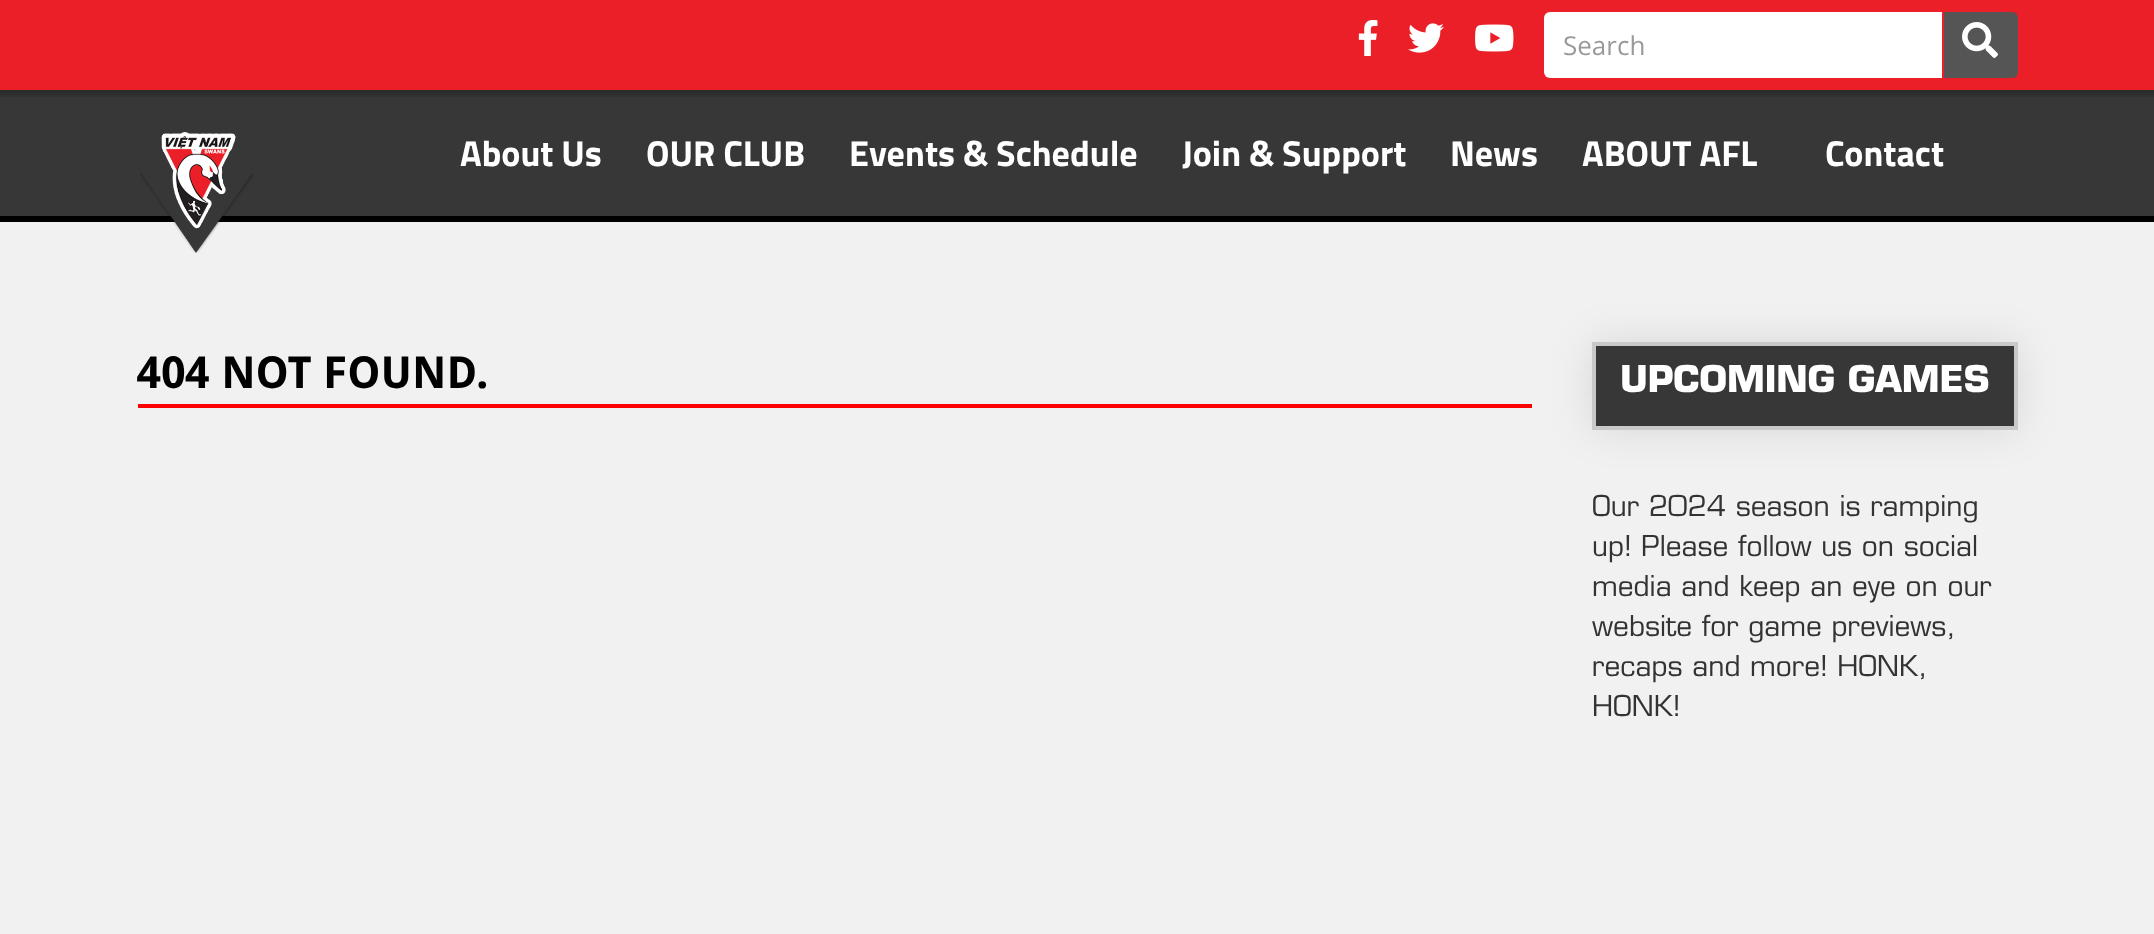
<!DOCTYPE html>
<meta charset="utf-8">
<style>body { margin: 0 } canvas { display: block }</style>
<canvas id="canvas" width="2154" height="934"></canvas>
<script type="module">
  const canvas = document.getElementById("canvas");
  const g = canvas.getContext("2d");
  g.miterLimit = 4;
  g.fontKerning = "normal";
  function drawText(s, x, y, [font, color]) {
    g.font = font;
    g.fillStyle = color;
    g.fillText(s, x, y);
  }
  function fillBox(x, y, w, h, color) {
    g.fillStyle = color;
    g.fillRect(x, y, w, h);
  }
  async function drawPicture(src, x, y, w, h) {
    const img = new Image();
    img.src = src;
    await img.decode();
    g.drawImage(img, x, y, w, h);
  }

  const s1 = ["26px Open Sans", "#999999"];
  const s2 = ["bold 36px Titillium Web", "#FFFFFF"];
  const s3 = ["bold 44px Droid Sans", "#000000"];
  const s4 = ["bold 36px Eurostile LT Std", "#FFFFFF"];
  const s5 = ["28px Eurostile LT Std", "#333333"];

  fillBox(0, 0, 2154, 934, "#EB1F27");
  await drawPicture("pic1.png", 1358, 20, 20, 36);
  await drawPicture("pic2.png", 1408, 23, 36, 30);
  await drawPicture("pic3.png", 1475, 24, 39, 28);
  g.fillStyle = "#FFFFFF";
  g.beginPath();
  g.roundRect(1544, 12, 398, 66, [6, 0, 0, 6]);
  g.fill();
  drawText("Search", 1563, 55, s1);
  g.fillStyle = "#555555";
  g.beginPath();
  g.roundRect(1944, 12, 74, 66, [0, 6, 6, 0]);
  g.fill();
  await drawPicture("pic4.png", 1962, 22, 36, 36);
  fillBox(0, 90, 2154, 126, "#373737");
  await drawPicture("pic5.png", 0, 90, 2154, 7);
  fillBox(0, 222, 2154, 712, "#F1F1F1");
  fillBox(0, 216, 2154, 6, "#000000");
  await drawPicture("pic6.png", 140, 132, 114, 121);
  drawText("About Us", 460, 166, s2);
  drawText("OUR CLUB", 646, 166, s2);
  drawText("Events & Schedule", 849, 166, s2);
  drawText("Join & Support", 1182, 166, s2);
  drawText("News", 1450, 166, s2);
  drawText("ABOUT AFL", 1582, 166, s2);
  drawText("Contact", 1825, 166, s2);
  fillBox(138, 404, 1394, 4, "#FF0000");
  drawText("404 NOT FOUND.", 137, 388, s3);
  g.fillStyle = "rgba(0, 0, 0, 0.1)";
  g.filter = "blur(21px)";
  g.beginPath();
  g.rect(1592, 342, 426, 88);
  g.fill();
  g.filter = "none";
  g.strokeStyle = "#C9C9C9";
  g.lineWidth = 4;
  g.strokeRect(1594, 344, 422, 84);
  fillBox(1596, 346, 418, 80, "#373737");
  drawText("UPCOMING GAMES", 1620, 392, s4);
  drawText("Our 2024 season is ramping", 1592, 516, s5);
  drawText("up! Please follow us on social", 1592, 556, s5);
  drawText("media and keep an eye on our", 1592, 596, s5);
  drawText("website for game previews,", 1592, 636, s5);
  drawText("recaps and more! HONK,", 1592, 676, s5);
  drawText("HONK!", 1592, 716, s5);
</script>
